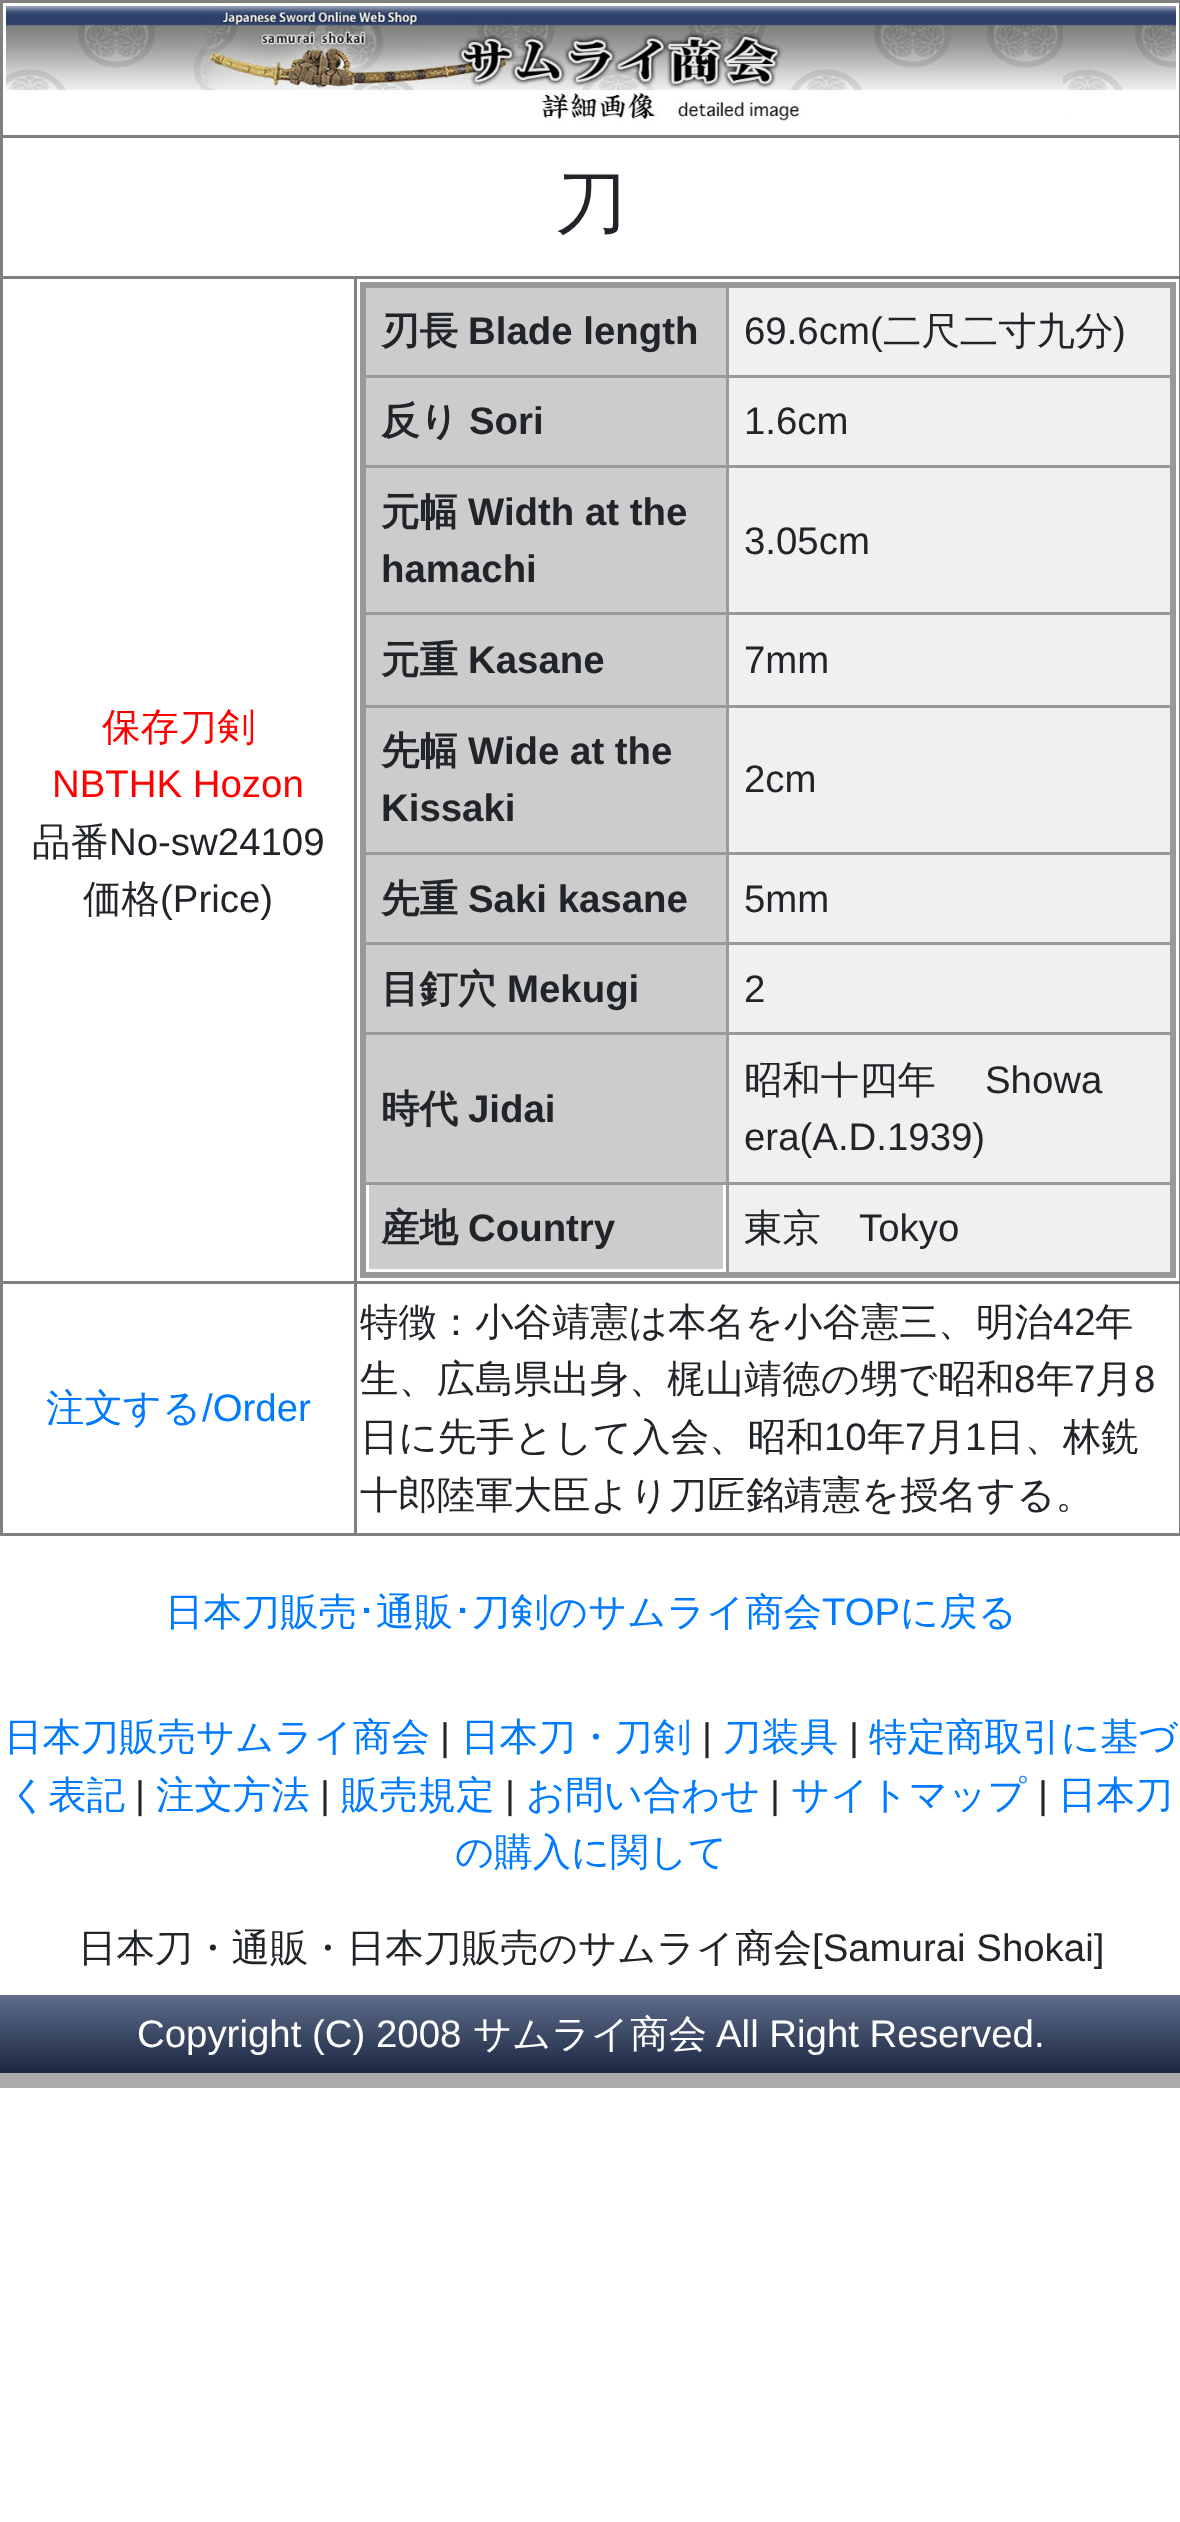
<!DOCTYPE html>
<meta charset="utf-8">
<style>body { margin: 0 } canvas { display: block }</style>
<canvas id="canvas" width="1180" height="2522"></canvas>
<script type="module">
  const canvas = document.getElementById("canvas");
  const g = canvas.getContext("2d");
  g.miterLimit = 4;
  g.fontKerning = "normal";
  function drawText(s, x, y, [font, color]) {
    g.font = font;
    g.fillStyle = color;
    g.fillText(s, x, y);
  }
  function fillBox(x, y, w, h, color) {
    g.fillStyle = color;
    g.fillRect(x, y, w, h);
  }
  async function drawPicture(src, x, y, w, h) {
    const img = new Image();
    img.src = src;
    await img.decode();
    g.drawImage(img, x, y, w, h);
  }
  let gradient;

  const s1 = ["500 72px WenQuanYi Zen Hei", "#212529"];
  const s2 = ["500 38.4px WenQuanYi Zen Hei", "#FF0000"];
  const s3 = ["38.4px Liberation Sans", "#FF0000"];
  const s4 = ["500 38.4px WenQuanYi Zen Hei", "#212529"];
  const s5 = ["38.4px Liberation Sans", "#212529"];
  const s6 = ["bold 38.4px WenQuanYi Zen Hei", "#212529"];
  const s7 = ["bold 38.4px Liberation Sans", "#212529"];
  const s8 = ["500 38.4px WenQuanYi Zen Hei", "#007BFF"];
  const s9 = ["38.4px Liberation Sans", "#007BFF"];
  const s10 = ["38.4px IPAPGothic", "#007BFF"];
  const s11 = ["38.4px Liberation Sans", "#FFFFFF"];
  const s12 = ["500 38.4px WenQuanYi Zen Hei", "#FFFFFF"];

  fillBox(0, 0, 1180, 2522, "#FFFFFF");
  fillBox(0, 0, 1180, 3, "#808080");
  fillBox(1179, 0, 1, 1536, "#808080");
  fillBox(0, 1533, 1180, 3, "#808080");
  fillBox(0, 0, 3, 1536, "#808080");
  await drawPicture("pic1.png", 6, 6, 1170, 115);
  fillBox(0, 135, 1180, 3, "#808080");
  drawText("刀", 555, 227, s1);
  fillBox(354, 276, 826, 3, "#808080");
  fillBox(354, 1281, 826, 3, "#808080");
  fillBox(354, 1281, 3, 255, "#808080");
  fillBox(0, 1281, 357, 3, "#808080");
  fillBox(354, 276, 3, 1008, "#808080");
  fillBox(0, 276, 357, 3, "#808080");
  drawText("保存刀剣", 102, 740, s2);
  drawText("NBTHK Hozon", 52, 797, s3);
  drawText("品番", 32, 855, s4);
  drawText("No-sw24109", 109, 855, s5);
  drawText("価格", 83, 912, s4);
  drawText("(Price)", 160, 912, s5);
  fillBox(366, 288, 360, 87, "#CCCCCC");
  fillBox(360, 375, 816, 3, "#999999");
  fillBox(360, 465, 816, 3, "#999999");
  fillBox(360, 612, 816, 3, "#999999");
  fillBox(360, 705, 816, 3, "#999999");
  fillBox(360, 852, 816, 3, "#999999");
  fillBox(360, 942, 816, 3, "#999999");
  fillBox(360, 1032, 816, 3, "#999999");
  fillBox(360, 1182, 816, 3, "#999999");
  fillBox(726, 1182, 3, 93, "#999999");
  fillBox(726, 1032, 3, 153, "#999999");
  fillBox(726, 942, 3, 93, "#999999");
  fillBox(726, 852, 3, 93, "#999999");
  fillBox(726, 705, 3, 150, "#999999");
  fillBox(726, 612, 3, 96, "#999999");
  fillBox(726, 465, 3, 150, "#999999");
  fillBox(726, 282, 3, 186, "#999999");
  fillBox(360, 282, 816, 6, "#999999");
  fillBox(1170, 372, 6, 906, "#999999");
  fillBox(360, 1272, 816, 6, "#999999");
  fillBox(360, 372, 6, 906, "#999999");
  fillBox(360, 282, 6, 96, "#999999");
  drawText("刃長", 381, 344, s6);
  drawText("Blade length", 468, 344, s7);
  fillBox(729, 288, 441, 87, "#F0F0F0");
  fillBox(1170, 282, 6, 96, "#999999");
  drawText("69.6cm(", 744, 344, s5);
  drawText("二尺二寸九分", 883, 344, s4);
  drawText(")", 1113, 344, s5);
  fillBox(366, 378, 360, 87, "#CCCCCC");
  drawText("反り", 381, 434, s6);
  drawText("Sori", 469, 434, s7);
  fillBox(729, 378, 441, 87, "#F0F0F0");
  drawText("1.6cm", 744, 434, s5);
  fillBox(366, 468, 360, 144, "#CCCCCC");
  drawText("元幅", 381, 525, s6);
  drawText("Width at the", 468, 525, s7);
  drawText("hamachi", 381, 582, s7);
  fillBox(729, 468, 441, 144, "#F0F0F0");
  drawText("3.05cm", 744, 554, s5);
  fillBox(366, 615, 360, 90, "#CCCCCC");
  drawText("元重", 381, 673, s6);
  drawText("Kasane", 468, 673, s7);
  fillBox(729, 615, 441, 90, "#F0F0F0");
  drawText("7mm", 744, 673, s5);
  fillBox(366, 708, 360, 144, "#CCCCCC");
  drawText("先幅", 381, 764, s6);
  drawText("Wide at the", 468, 764, s7);
  drawText("Kissaki", 381, 821, s7);
  fillBox(729, 708, 441, 144, "#F0F0F0");
  drawText("2cm", 744, 792, s5);
  fillBox(366, 855, 360, 87, "#CCCCCC");
  drawText("先重", 381, 912, s6);
  drawText("Saki kasane", 468, 912, s7);
  fillBox(729, 855, 441, 87, "#F0F0F0");
  drawText("5mm", 744, 912, s5);
  fillBox(366, 945, 360, 87, "#CCCCCC");
  drawText("目釘穴", 381, 1002, s6);
  drawText("Mekugi", 507, 1002, s7);
  fillBox(729, 945, 441, 87, "#F0F0F0");
  drawText("2", 744, 1002, s5);
  fillBox(366, 1035, 360, 147, "#CCCCCC");
  drawText("時代", 381, 1122, s6);
  drawText("Jidai", 468, 1122, s7);
  fillBox(729, 1035, 441, 147, "#F0F0F0");
  drawText("昭和十四年", 744, 1093, s4);
  drawText("Showa", 985, 1093, s5);
  drawText("era(A.D.1939)", 744, 1150, s5);
  fillBox(369, 1185, 354, 84, "#CCCCCC");
  drawText("産地", 381, 1241, s6);
  drawText("Country", 468, 1241, s7);
  fillBox(729, 1185, 441, 87, "#F0F0F0");
  drawText("東京", 744, 1241, s4);
  drawText("Tokyo", 859, 1241, s5);
  drawText("注文する", 46, 1421, s8);
  drawText("/Order", 202, 1421, s9);
  drawText("特徴：小谷靖憲は本名を小谷憲三、明治", 360, 1335, s4);
  drawText("42", 1053, 1335, s5);
  drawText("年", 1095, 1335, s4);
  drawText("生、広島県出身、梶山靖徳の甥で昭和", 360, 1392, s4);
  drawText("8", 1014, 1392, s5);
  drawText("年", 1036, 1392, s4);
  drawText("7", 1074, 1392, s5);
  drawText("月", 1095, 1392, s4);
  drawText("8", 1134, 1392, s5);
  drawText("日に先手として入会、昭和", 360, 1450, s4);
  drawText("10", 824, 1450, s5);
  drawText("年", 867, 1450, s4);
  drawText("7", 905, 1450, s5);
  drawText("月", 927, 1450, s4);
  drawText("1", 965, 1450, s5);
  drawText("日、林銑", 986, 1450, s4);
  drawText("十郎陸軍大臣より刀匠銘靖憲を授名する。", 360, 1508, s4);
  drawText("日本刀販売", 165, 1625, s8);
  drawText("･", 357, 1625, s10);
  drawText("通販", 376, 1625, s8);
  drawText("･", 453, 1625, s10);
  drawText("刀剣のサムライ商会", 472, 1625, s8);
  drawText("TOP", 822, 1625, s9);
  drawText("に戻る", 900, 1625, s8);
  drawText("日本刀販売サムライ商会", 4, 1750, s8);
  drawText("|", 440, 1750, s5);
  drawText("日本刀・刀剣", 461, 1750, s8);
  drawText("|", 702, 1750, s5);
  drawText("刀装具", 723, 1750, s8);
  drawText("|", 849, 1750, s5);
  drawText("特定商取引に基づ", 869, 1750, s8);
  drawText("く表記", 9, 1808, s8);
  drawText("|", 135, 1808, s5);
  drawText("注文方法", 156, 1808, s8);
  drawText("|", 320, 1808, s5);
  drawText("販売規定", 341, 1808, s8);
  drawText("|", 505, 1808, s5);
  drawText("お問い合わせ", 526, 1808, s8);
  drawText("|", 770, 1808, s5);
  drawText("サイトマップ", 791, 1808, s8);
  drawText("|", 1038, 1808, s5);
  drawText("日本刀", 1058, 1808, s8);
  drawText("の購入に関して", 455, 1865, s8);
  drawText("日本刀・通販・日本刀販売のサムライ商会", 78, 1961, s4);
  drawText("[Samurai Shokai]", 812, 1961, s5);
  gradient = g.createLinearGradient(591, 1995, 591, 2073);
  gradient.addColorStop(0, "#5F6D8B");
  gradient.addColorStop(1, "#1B2741");
  g.fillStyle = gradient;
  g.fillRect(0, 1995, 1180, 78);
  fillBox(0, 2073, 1180, 15, "#AAAAAA");
  drawText("Copyright (C) 2008", 137, 2047, s11);
  drawText("サムライ商会", 473, 2047, s12);
  drawText("All Right Reserved.", 716, 2047, s11);
</script>
